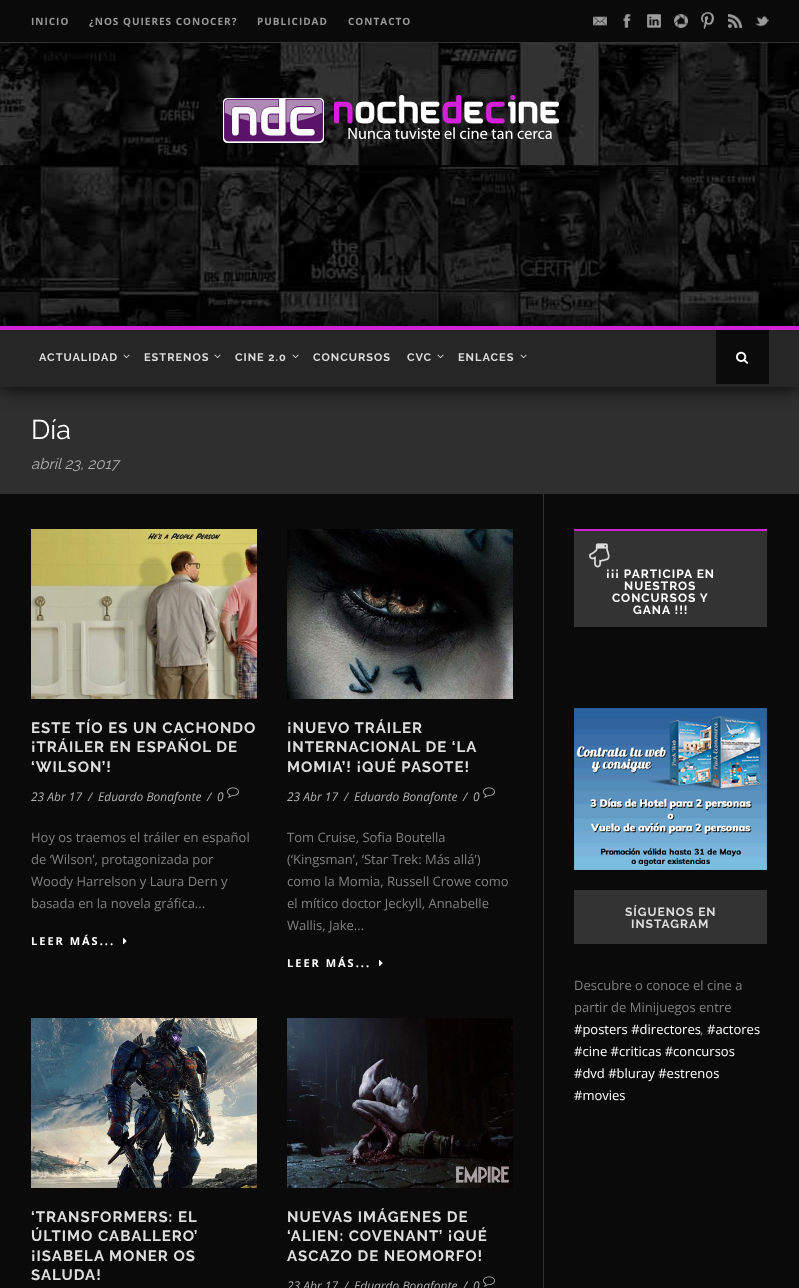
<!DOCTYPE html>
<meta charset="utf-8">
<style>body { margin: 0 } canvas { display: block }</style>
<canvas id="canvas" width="799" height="1288"></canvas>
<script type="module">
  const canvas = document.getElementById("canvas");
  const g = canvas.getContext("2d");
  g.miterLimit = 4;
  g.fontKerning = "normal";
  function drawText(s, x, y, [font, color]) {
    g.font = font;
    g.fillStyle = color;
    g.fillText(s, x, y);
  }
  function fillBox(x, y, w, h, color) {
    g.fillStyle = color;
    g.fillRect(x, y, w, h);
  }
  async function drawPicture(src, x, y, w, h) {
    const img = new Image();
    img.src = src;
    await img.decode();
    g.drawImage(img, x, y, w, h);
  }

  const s1 = ["bold 10px Open Sans", "#999999"];
  const s2 = ["bold 11px Raleway", "#DDDDDD"];
  const s3 = ["27px Raleway", "#FFFFFF"];
  const s4 = ["italic 15px Raleway", "#AFAFAF"];
  const s5 = ["bold 15px Raleway", "#DDDDDD"];
  const s6 = ["italic 12px Open Sans", "#AFAFAF"];
  const s7 = ["13px Open Sans", "#808080"];
  const s8 = ["bold 11px Open Sans", "#FFFFFF"];
  const s9 = ["bold 12px Raleway", "#FFFFFF"];
  const s10 = ["bold 12px Raleway", "#DDDDDD"];
  const s11 = ["13px Open Sans", "#FFFFFF"];

  fillBox(0, 0, 799, 1288, "#0A0A0A");
  fillBox(0, 42, 799, 1, "#333333");
  g.letterSpacing = "1px";
  drawText("INICIO", 31, 25, s1);
  drawText("¿NOS QUIERES CONOCER?", 89, 25, s1);
  drawText("PUBLICIDAD", 257, 25, s1);
  drawText("CONTACTO", 348, 25, s1);
  await drawPicture("pic1.png", 593, 16, 14, 10);
  await drawPicture("pic2.png", 623, 14, 8, 14);
  await drawPicture("pic3.png", 647, 14, 14, 14);
  await drawPicture("pic4.png", 674, 14, 14, 14);
  await drawPicture("pic5.png", 701, 12, 13, 17);
  await drawPicture("pic6.png", 728, 14, 14, 14);
  await drawPicture("pic7.png", 755, 15, 14, 12);
  await drawPicture("pic8.png", 0, 43, 799, 283);
  await drawPicture("pic9.png", 223, 95, 336, 48);
  fillBox(0, 387, 799, 107, "#2F2F2F");
  g.fillStyle = "#000000";
  g.filter = "blur(10px)";
  g.beginPath();
  g.rect(0, 326, 799, 61);
  g.fill();
  g.filter = "none";
  fillBox(0, 330, 799, 57, "#262626");
  fillBox(0, 326, 799, 4, "#D520D9");
  drawText("ACTUALIDAD", 39, 361, s2);
  await drawPicture("pic10.png", 123, 354, 7, 5);
  drawText("ESTRENOS", 144, 361, s2);
  await drawPicture("pic10.png", 214, 354, 7, 5);
  drawText("CINE 2.0", 235, 361, s2);
  await drawPicture("pic10.png", 292, 354, 7, 5);
  drawText("CONCURSOS", 313, 361, s2);
  drawText("CVC", 407, 361, s2);
  await drawPicture("pic10.png", 437, 354, 7, 5);
  drawText("ENLACES", 458, 361, s2);
  await drawPicture("pic10.png", 520, 354, 7, 5);
  fillBox(716, 330, 53, 54, "#0B0B0B");
  await drawPicture("pic11.png", 736, 351, 12, 13);
  g.letterSpacing = "0px";
  drawText("Día", 31, 439, s3);
  drawText("abril 23, 2017", 31, 469, s4);
  await drawPicture("pic12.png", 31, 529, 226, 170);
  g.letterSpacing = "1px";
  drawText("ESTE TÍO ES UN CACHONDO", 31, 733, s5);
  drawText("¡TRÁILER EN ESPAÑOL DE", 31, 752, s5);
  drawText("‘WILSON’!", 31, 772, s5);
  g.letterSpacing = "0px";
  drawText("23 Abr 17", 31, 801, s6);
  drawText("/", 88, 801, s6);
  drawText("Eduardo Bonafonte", 98, 801, s6);
  drawText("/", 207, 801, s6);
  drawText("0", 217, 801, s6);
  await drawPicture("pic13.png", 227, 787, 12, 11);
  drawText("Hoy os traemos el tráiler en español", 31, 842, s7);
  drawText("de ‘Wilson’, protagonizada por", 31, 864, s7);
  drawText("Woody Harrelson y Laura Dern y", 31, 886, s7);
  drawText("basada en la novela gráfica...", 31, 908, s7);
  g.letterSpacing = "2px";
  drawText("LEER MÁS...", 31, 945, s8);
  await drawPicture("pic14.png", 123, 938, 4, 7);
  await drawPicture("pic15.png", 287, 529, 226, 170);
  g.letterSpacing = "1px";
  drawText("¡NUEVO TRÁILER", 287, 733, s5);
  drawText("INTERNACIONAL DE ‘LA", 287, 752, s5);
  drawText("MOMIA’! ¡QUÉ PASOTE!", 287, 772, s5);
  g.letterSpacing = "0px";
  drawText("23 Abr 17", 287, 801, s6);
  drawText("/", 344, 801, s6);
  drawText("Eduardo Bonafonte", 354, 801, s6);
  drawText("/", 463, 801, s6);
  drawText("0", 473, 801, s6);
  await drawPicture("pic13.png", 483, 787, 12, 11);
  drawText("Tom Cruise, Sofia Boutella", 287, 842, s7);
  drawText("(‘Kingsman’, ‘Star Trek: Más allá’)", 287, 864, s7);
  drawText("como la Momia, Russell Crowe como", 287, 886, s7);
  drawText("el mítico doctor Jeckyll, Annabelle", 287, 908, s7);
  drawText("Wallis, Jake...", 287, 930, s7);
  g.letterSpacing = "2px";
  drawText("LEER MÁS...", 287, 967, s8);
  await drawPicture("pic14.png", 379, 960, 4, 7);
  await drawPicture("pic16.png", 31, 1018, 226, 170);
  g.letterSpacing = "1px";
  drawText("‘TRANSFORMERS: EL", 31, 1222, s5);
  drawText("ÚLTIMO CABALLERO’", 31, 1241, s5);
  drawText("¡ISABELA MONER OS", 31, 1261, s5);
  drawText("SALUDA!", 31, 1280, s5);
  await drawPicture("pic17.png", 287, 1018, 226, 170);
  drawText("NUEVAS IMÁGENES DE", 287, 1222, s5);
  drawText("‘ALIEN: COVENANT’ ¡QUÉ", 287, 1241, s5);
  drawText("ASCAZO DE NEOMORFO!", 287, 1261, s5);
  g.letterSpacing = "0px";
  drawText("23 Abr 17", 287, 1290, s6);
  drawText("/", 344, 1290, s6);
  drawText("Eduardo Bonafonte", 354, 1290, s6);
  drawText("/", 463, 1290, s6);
  drawText("0", 473, 1290, s6);
  await drawPicture("pic13.png", 483, 1276, 12, 11);
  fillBox(543, 494, 1, 794, "#333333");
  fillBox(574, 531, 193, 96, "#333333");
  fillBox(574, 529, 193, 2, "#D520D9");
  await drawPicture("pic18.png", 589, 543, 21, 25);
  g.letterSpacing = "1px";
  drawText("¡¡¡ PARTICIPA EN", 606, 578, s9);
  drawText("NUESTROS", 624, 590, s9);
  drawText("CONCURSOS Y", 612, 602, s9);
  drawText("GANA !!!", 633, 614, s9);
  await drawPicture("pic19.png", 574, 708, 193, 162);
  fillBox(574, 890, 193, 54, "#333333");
  drawText("SÍGUENOS EN", 625, 916, s10);
  drawText("INSTAGRAM", 631, 928, s10);
  g.letterSpacing = "0px";
  drawText("Descubre o conoce el cine a", 574, 990, s7);
  drawText("partir de Minijuegos entre", 574, 1012, s7);
  drawText("#posters #directores", 574, 1034, s11);
  drawText(",", 700, 1034, s7);
  drawText("#actores", 707, 1034, s11);
  drawText("#cine #criticas #concursos", 574, 1056, s11);
  drawText("#dvd #bluray #estrenos", 574, 1078, s11);
  drawText("#movies", 574, 1100, s11);
</script>
